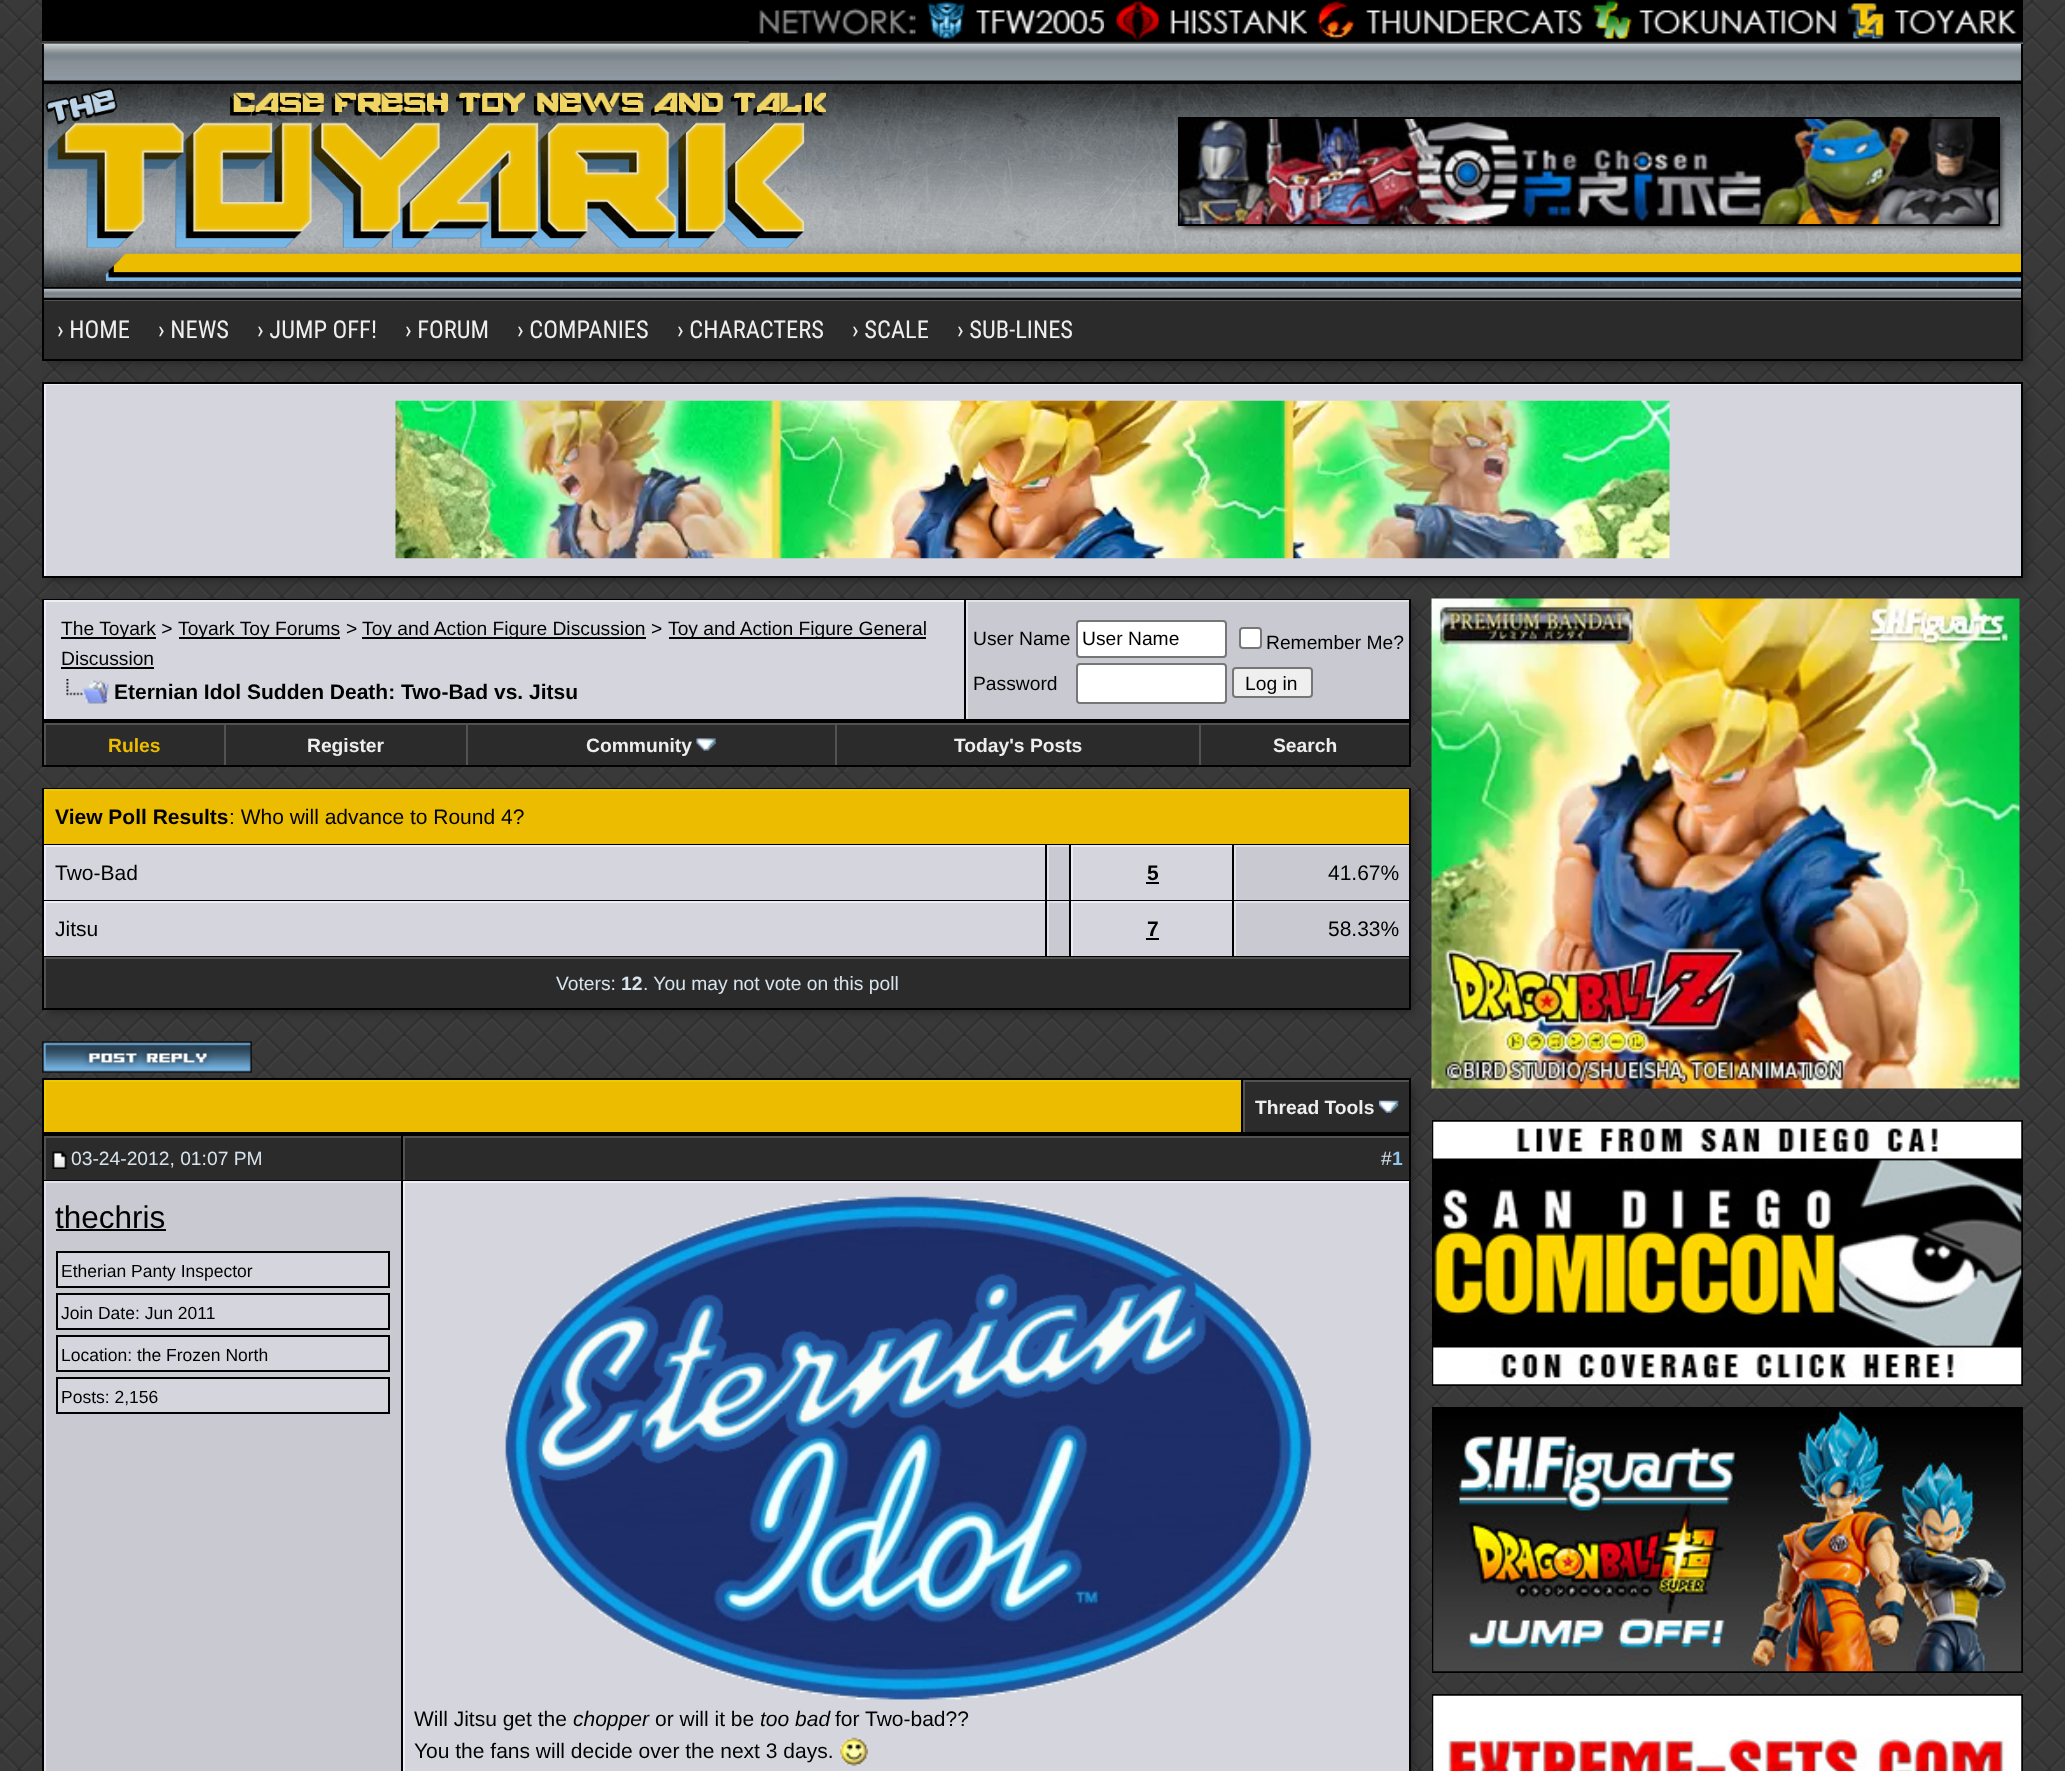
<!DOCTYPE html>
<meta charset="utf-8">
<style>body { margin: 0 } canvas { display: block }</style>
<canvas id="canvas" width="2065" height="1771"></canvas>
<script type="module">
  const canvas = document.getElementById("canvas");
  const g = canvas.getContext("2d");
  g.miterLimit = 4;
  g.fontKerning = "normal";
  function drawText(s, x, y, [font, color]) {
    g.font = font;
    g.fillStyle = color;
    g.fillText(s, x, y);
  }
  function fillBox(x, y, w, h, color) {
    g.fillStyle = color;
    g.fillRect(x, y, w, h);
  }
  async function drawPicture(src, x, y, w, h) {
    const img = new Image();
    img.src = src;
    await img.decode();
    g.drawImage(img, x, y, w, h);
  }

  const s1 = ["24.5px Roboto Condensed", "#EEEEEE"];
  const s2 = ["19.25px Liberation Sans", "#000000"];
  const s3 = ["bold 21px Liberation Sans", "#000000"];
  const s4 = ["bold 19.25px Liberation Sans", "#EBBC00"];
  const s5 = ["bold 19.25px Liberation Sans", "#EEEEEE"];
  const s6 = ["21px Liberation Sans", "#000000"];
  const s7 = ["19.25px Liberation Sans", "#D8E4ED"];
  const s8 = ["bold 19.25px Liberation Sans", "#D8E4ED"];
  const s9 = ["bold 19.25px Liberation Sans", "#91C5ED"];
  const s10 = ["31.5px Liberation Sans", "#000000"];
  const s11 = ["17.5px Liberation Sans", "#000000"];
  const s12 = ["italic 21px Liberation Sans", "#000000"];

  fillBox(0, 0, 2065, 1771, "#FFFFFF");
  await drawPicture("pic1.png", 0, 0, 2065, 1771);
  fillBox(42, 0, 707, 41, "#000000");
  fillBox(42, 41, 1981, 3, "#3F3F3F");
  await drawPicture("pic2.png", 749, 0, 1274, 44);
  await drawPicture("pic3.png", 913, 1, 192, 38);
  await drawPicture("pic4.png", 1104, 1, 204, 40);
  await drawPicture("pic5.png", 1307, 1, 276, 38);
  await drawPicture("pic6.png", 42, 43, 1981, 255);
  fillBox(2021, 44, 2, 254, "#000000");
  fillBox(42, 44, 2, 254, "#000000");
  await drawPicture("pic7.png", 43, 43, 797, 255);
  g.fillStyle = "#333333";
  g.filter = "blur(2.5px)";
  g.beginPath();
  g.rect(1183, 123, 819, 105);
  g.fill();
  g.filter = "none";
  g.strokeStyle = "#000000";
  g.lineWidth = 2;
  g.strokeRect(1179, 118, 820, 107);
  await drawPicture("pic8.png", 1179, 119, 820, 105);
  g.fillStyle = "#29292B";
  g.filter = "blur(4.5px)";
  g.beginPath();
  g.rect(49, 305, 1978, 59);
  g.fill();
  g.filter = "none";
  fillBox(44, 301, 1977, 58, "#2B2B2B");
  fillBox(44, 300, 1977, 1, "#525252");
  g.strokeRect(43, 299, 1979, 61);
  drawText("› HOME", 57, 338, s1);
  drawText("› NEWS", 158, 338, s1);
  drawText("› JUMP OFF!", 257, 338, s1);
  drawText("› FORUM", 405, 338, s1);
  drawText("› COMPANIES", 517, 338, s1);
  drawText("› CHARACTERS", 677, 338, s1);
  drawText("› SCALE", 852, 338, s1);
  drawText("› SUB-LINES", 957, 338, s1);
  g.fillStyle = "#29292B";
  g.filter = "blur(4.5px)";
  g.beginPath();
  g.rect(49, 389, 1978, 192);
  g.fill();
  g.filter = "none";
  fillBox(46, 385, 1975, 191, "#D5D5DE");
  g.save();
  g.beginPath();
  g.rect(44, 383, 1977, 193);
  g.clip();
  g.fillStyle = "#EDEDF7";
  g.beginPath();
  g.moveTo(-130, 210);
  g.lineTo(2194, 210);
  g.lineTo(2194, 749);
  g.lineTo(-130, 749);
  g.closePath();
  g.moveTo(46, 385);
  g.lineTo(2023, 385);
  g.lineTo(2023, 578);
  g.lineTo(46, 578);
  g.closePath();
  g.fill("evenodd");
  g.restore();
  g.strokeRect(43, 383, 1979, 194);
  await drawPicture("pic9.png", 395, 400, 1275, 159);
  g.fillStyle = "#29292B";
  g.filter = "blur(4.5px)";
  g.beginPath();
  g.rect(49, 606, 1365, 119);
  g.fill();
  g.filter = "none";
  fillBox(42, 599, 1369, 168, "#000000");
  fillBox(46, 602, 918, 117, "#D5D5DE");
  fillBox(44, 600, 920, 2, "#EDEDF7");
  fillBox(44, 600, 2, 119, "#EDEDF7");
  fillBox(61, 637, 95, 2, "#000000");
  drawText("The Toyark >", 61, 635, s2);
  fillBox(179, 637, 161, 2, "#000000");
  drawText("Toyark Toy Forums", 178, 635, s2);
  drawText(">", 346, 635, s2);
  fillBox(362, 637, 284, 2, "#000000");
  drawText("Toy and Action Figure Discussion", 362, 635, s2);
  drawText(">", 651, 635, s2);
  fillBox(669, 637, 257, 2, "#000000");
  drawText("Toy and Action Figure General", 668, 635, s2);
  drawText("Discussion", 61, 665, s2);
  fillBox(61, 667, 93, 2, "#000000");
  await drawPicture("pic10.png", 66, 679, 43, 25);
  drawText("Eternian Idol Sudden Death: Two-Bad vs. Jitsu", 114, 699, s3);
  fillBox(968, 602, 441, 117, "#C9C9D1");
  fillBox(966, 600, 443, 2, "#E1E1EB");
  fillBox(966, 600, 2, 119, "#E1E1EB");
  drawText("User Name", 973, 645, s2);
  g.fillStyle = "#FFFFFF";
  g.beginPath();
  g.roundRect(1077, 621, 149, 36, 3);
  g.fill();
  g.strokeStyle = "#767676";
  g.stroke();
  drawText("User Name", 1082, 645, s2);
  g.fillStyle = "#FFFFFF";
  g.beginPath();
  g.roundRect(1240, 628, 21, 20, 3);
  g.fill();
  g.stroke();
  drawText("Remember Me?", 1266, 649, s2);
  drawText("Password", 973, 690, s2);
  g.fillStyle = "#FFFFFF";
  g.beginPath();
  g.roundRect(1077, 664, 149, 39, 3);
  g.fill();
  g.stroke();
  g.fillStyle = "#EFEFEF";
  g.beginPath();
  g.roundRect(1233, 668, 79, 29, 3);
  g.fill();
  g.stroke();
  drawText("Log in", 1245, 690, s2);
  fillBox(46, 725, 178, 40, "#2B2B2B");
  fillBox(44, 723, 1365, 2, "#525252");
  fillBox(44, 723, 2, 42, "#525252");
  drawText("Rules", 108, 752, s4);
  fillBox(226, 725, 240, 40, "#2B2B2B");
  fillBox(224, 723, 2, 42, "#525252");
  drawText("Register", 307, 752, s5);
  fillBox(468, 725, 367, 40, "#2B2B2B");
  fillBox(466, 723, 2, 42, "#525252");
  drawText("Community", 586, 752, s5);
  await drawPicture("pic11.png", 696, 738, 20, 13);
  fillBox(837, 725, 362, 40, "#2B2B2B");
  fillBox(835, 723, 2, 42, "#525252");
  drawText("Today's Posts", 954, 752, s5);
  fillBox(1201, 725, 208, 40, "#2B2B2B");
  fillBox(1199, 723, 2, 42, "#525252");
  drawText("Search", 1273, 752, s5);
  g.fillStyle = "#29292B";
  g.filter = "blur(4.5px)";
  g.beginPath();
  g.rect(49, 795, 1365, 218);
  g.fill();
  g.filter = "none";
  fillBox(42, 788, 1369, 222, "#000000");
  fillBox(46, 791, 1363, 53, "#EBBC00");
  fillBox(44, 789, 1365, 2, "#EBCB00");
  fillBox(44, 789, 2, 55, "#EBCB00");
  drawText("View Poll Results", 55, 824, s3);
  drawText(": Who will advance to Round 4?", 229, 824, s6);
  fillBox(46, 847, 999, 53, "#D5D5DE");
  fillBox(44, 845, 1001, 2, "#EDEDF7");
  fillBox(44, 845, 2, 55, "#EDEDF7");
  drawText("Two-Bad", 55, 880, s6);
  fillBox(1049, 847, 20, 53, "#C9C9D1");
  fillBox(1047, 845, 22, 2, "#E1E1EB");
  fillBox(1047, 845, 2, 55, "#E1E1EB");
  fillBox(1073, 847, 159, 53, "#D5D5DE");
  fillBox(1071, 845, 161, 2, "#EDEDF7");
  fillBox(1071, 845, 2, 55, "#EDEDF7");
  drawText("5", 1147, 880, s3);
  fillBox(1146, 882, 13, 2, "#000000");
  fillBox(1236, 847, 173, 53, "#C9C9D1");
  fillBox(1234, 845, 175, 2, "#E1E1EB");
  fillBox(1234, 845, 2, 55, "#E1E1EB");
  drawText("41.67%", 1328, 880, s6);
  fillBox(46, 903, 999, 53, "#D5D5DE");
  fillBox(44, 901, 1001, 2, "#EDEDF7");
  fillBox(44, 901, 2, 55, "#EDEDF7");
  drawText("Jitsu", 55, 936, s6);
  fillBox(1049, 903, 20, 53, "#C9C9D1");
  fillBox(1047, 901, 22, 2, "#E1E1EB");
  fillBox(1047, 901, 2, 55, "#E1E1EB");
  fillBox(1073, 903, 159, 53, "#D5D5DE");
  fillBox(1071, 901, 161, 2, "#EDEDF7");
  fillBox(1071, 901, 2, 55, "#EDEDF7");
  drawText("7", 1147, 936, s3);
  fillBox(1146, 938, 13, 2, "#000000");
  fillBox(1236, 903, 173, 53, "#C9C9D1");
  fillBox(1234, 901, 175, 2, "#E1E1EB");
  fillBox(1234, 901, 2, 55, "#E1E1EB");
  drawText("58.33%", 1328, 936, s6);
  fillBox(46, 959, 1363, 49, "#2B2B2B");
  fillBox(44, 957, 1365, 2, "#525252");
  fillBox(44, 957, 2, 51, "#525252");
  drawText("Voters:", 556, 990, s7);
  drawText("12", 621, 990, s8);
  drawText(". You may not vote on this poll", 643, 990, s7);
  g.fillStyle = "#29292B";
  g.filter = "blur(4.5px)";
  g.beginPath();
  g.rect(49, 1085, 1365, 53);
  g.fill();
  g.filter = "none";
  await drawPicture("pic12.png", 42, 1041, 210, 32);
  fillBox(42, 1078, 1369, 56, "#000000");
  fillBox(46, 1082, 1195, 50, "#EBBC00");
  fillBox(44, 1080, 1197, 2, "#EBCB00");
  fillBox(44, 1080, 2, 52, "#EBCB00");
  fillBox(1245, 1082, 164, 50, "#2B2B2B");
  fillBox(1243, 1080, 166, 2, "#525252");
  fillBox(1243, 1080, 2, 52, "#525252");
  drawText("Thread Tools", 1255, 1114, s5);
  await drawPicture("pic13.png", 1379, 1100, 20, 13);
  g.fillStyle = "#29292B";
  g.filter = "blur(4.5px)";
  g.beginPath();
  g.rect(49, 1141, 1365, 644);
  g.fill();
  g.filter = "none";
  fillBox(42, 1134, 1369, 637, "#000000");
  fillBox(46, 1138, 355, 42, "#2B2B2B");
  fillBox(44, 1136, 357, 2, "#525252");
  fillBox(44, 1136, 2, 44, "#525252");
  await drawPicture("pic14.png", 52, 1151, 15, 18);
  drawText("03-24-2012, 01:07 PM", 71, 1165, s7);
  fillBox(405, 1138, 1004, 42, "#2B2B2B");
  fillBox(403, 1136, 1006, 2, "#525252");
  fillBox(403, 1136, 2, 44, "#525252");
  drawText("#", 1381, 1165, s7);
  drawText("1", 1392, 1165, s9);
  fillBox(46, 1183, 355, 588, "#C9C9D1");
  fillBox(44, 1181, 357, 2, "#E1E1EB");
  fillBox(44, 1181, 2, 590, "#E1E1EB");
  drawText("thechris", 55, 1228, s10);
  fillBox(56, 1229, 110, 2, "#000000");
  g.fillStyle = "#D5D5DE";
  g.beginPath();
  g.rect(57, 1252, 332, 35);
  g.fill();
  g.strokeStyle = "#000000";
  g.stroke();
  drawText("Etherian Panty Inspector", 61, 1277, s11);
  g.fillStyle = "#D5D5DE";
  g.beginPath();
  g.rect(57, 1294, 332, 35);
  g.fill();
  g.stroke();
  drawText("Join Date: Jun 2011", 61, 1319, s11);
  g.fillStyle = "#D5D5DE";
  g.beginPath();
  g.rect(57, 1336, 332, 35);
  g.fill();
  g.stroke();
  drawText("Location: the Frozen North", 61, 1361, s11);
  g.fillStyle = "#D5D5DE";
  g.beginPath();
  g.rect(57, 1378, 332, 35);
  g.fill();
  g.stroke();
  drawText("Posts: 2,156", 61, 1403, s11);
  fillBox(405, 1183, 1004, 588, "#D5D5DE");
  fillBox(403, 1181, 1006, 2, "#EDEDF7");
  fillBox(403, 1181, 2, 590, "#EDEDF7");
  await drawPicture("pic15.png", 505, 1196, 807, 504);
  drawText("Will Jitsu get the", 414, 1726, s6);
  drawText("chopper", 573, 1726, s12);
  drawText("or will it be", 655, 1726, s6);
  drawText("too bad", 760, 1726, s12);
  drawText("for Two-bad??", 835, 1726, s6);
  drawText("You the fans will decide over the next 3 days.", 414, 1758, s6);
  await drawPicture("pic16.png", 840, 1737, 28, 29);
  await drawPicture("pic17.png", 1431, 598, 589, 491);
  g.strokeRect(1433, 1121, 589, 264);
  await drawPicture("pic18.png", 1433, 1121, 589, 264);
  g.strokeRect(1433, 1408, 589, 264);
  await drawPicture("pic19.png", 1433, 1409, 589, 263);
  g.strokeRect(1433, 1695, 589, 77);
  await drawPicture("pic20.png", 1433, 1695, 589, 76);
</script>
